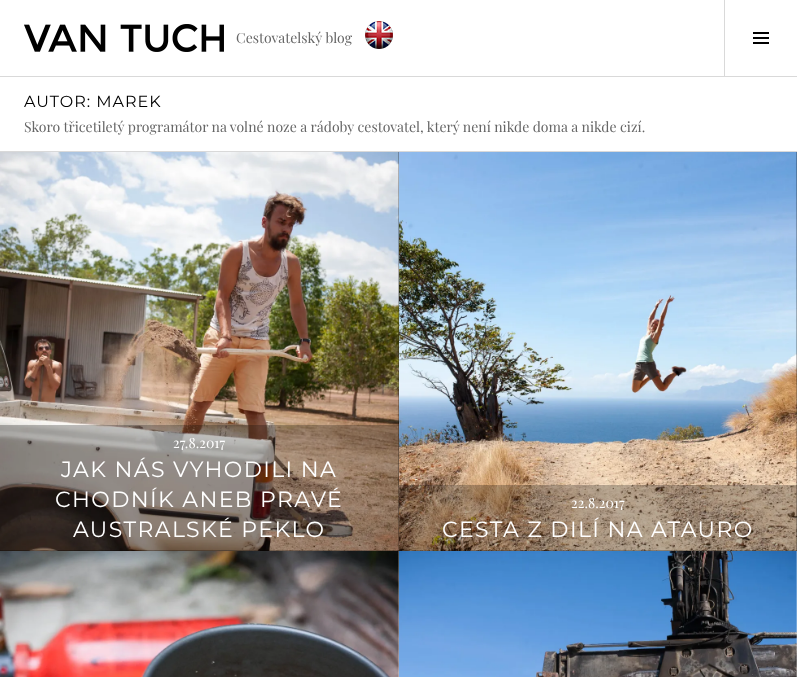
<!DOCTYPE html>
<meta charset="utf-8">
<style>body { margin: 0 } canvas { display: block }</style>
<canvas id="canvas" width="797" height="677"></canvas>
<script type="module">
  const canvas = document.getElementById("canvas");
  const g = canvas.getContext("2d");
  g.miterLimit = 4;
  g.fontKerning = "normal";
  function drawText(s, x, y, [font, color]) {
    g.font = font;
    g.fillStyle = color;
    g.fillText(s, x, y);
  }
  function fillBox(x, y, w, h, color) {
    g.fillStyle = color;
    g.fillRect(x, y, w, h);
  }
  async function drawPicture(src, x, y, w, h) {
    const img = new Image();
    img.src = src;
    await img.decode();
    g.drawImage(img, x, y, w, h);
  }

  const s1 = ["14px Playfair Display", "#666666"];
  const s2 = ["16px Montserrat", "#000000"];
  const s3 = ["14px Playfair Display", "#FFFFFF"];
  const s4 = ["22px Montserrat", "#FFFFFF"];

  fillBox(0, 0, 797, 677, "#FFFFFF");
  fillBox(0, 76, 797, 1, "#D9D9D9");
  await drawPicture("pic1.png", 24, 24, 200, 28);
  drawText("Cestovatelský blog", 236, 43, s1);
  await drawPicture("pic2.png", 365, 21, 28, 28);
  fillBox(724, 0, 1, 76, "#D9D9D9");
  await drawPicture("pic3.png", 753, 32, 16, 12);
  fillBox(0, 151, 797, 1, "#D9D9D9");
  g.letterSpacing = "1px";
  drawText("AUTOR: MAREK", 24, 107, s2);
  g.letterSpacing = "0px";
  drawText("Skoro třicetiletý programátor na volné noze a rádoby cestovatel, který není nikde doma a nikde cizí.", 24, 132, s1);
  fillBox(0, 152, 797, 399, "#000000");
  await drawPicture("pic4.png", 0, 152, 399, 399);
  fillBox(0, 425, 399, 126, "rgba(0, 0, 0, 0.25)");
  drawText("27.8.2017", 173, 448, s3);
  g.letterSpacing = "1.4px";
  drawText("JAK NÁS VYHODILI NA", 61, 477, s4);
  drawText("CHODNÍK ANEB PRAVÉ", 55, 507, s4);
  drawText("AUSTRALSKÉ PEKLO", 73, 537, s4);
  await drawPicture("pic5.png", 399, 152, 398, 399);
  fillBox(399, 485, 398, 66, "rgba(0, 0, 0, 0.25)");
  g.letterSpacing = "0px";
  drawText("22.8.2017", 571, 508, s3);
  g.letterSpacing = "1.4px";
  drawText("CESTA Z DILÍ NA ATAURO", 442, 537, s4);
  await drawPicture("pic6.png", 0, 551, 399, 126);
  await drawPicture("pic7.png", 399, 551, 398, 126);
</script>
